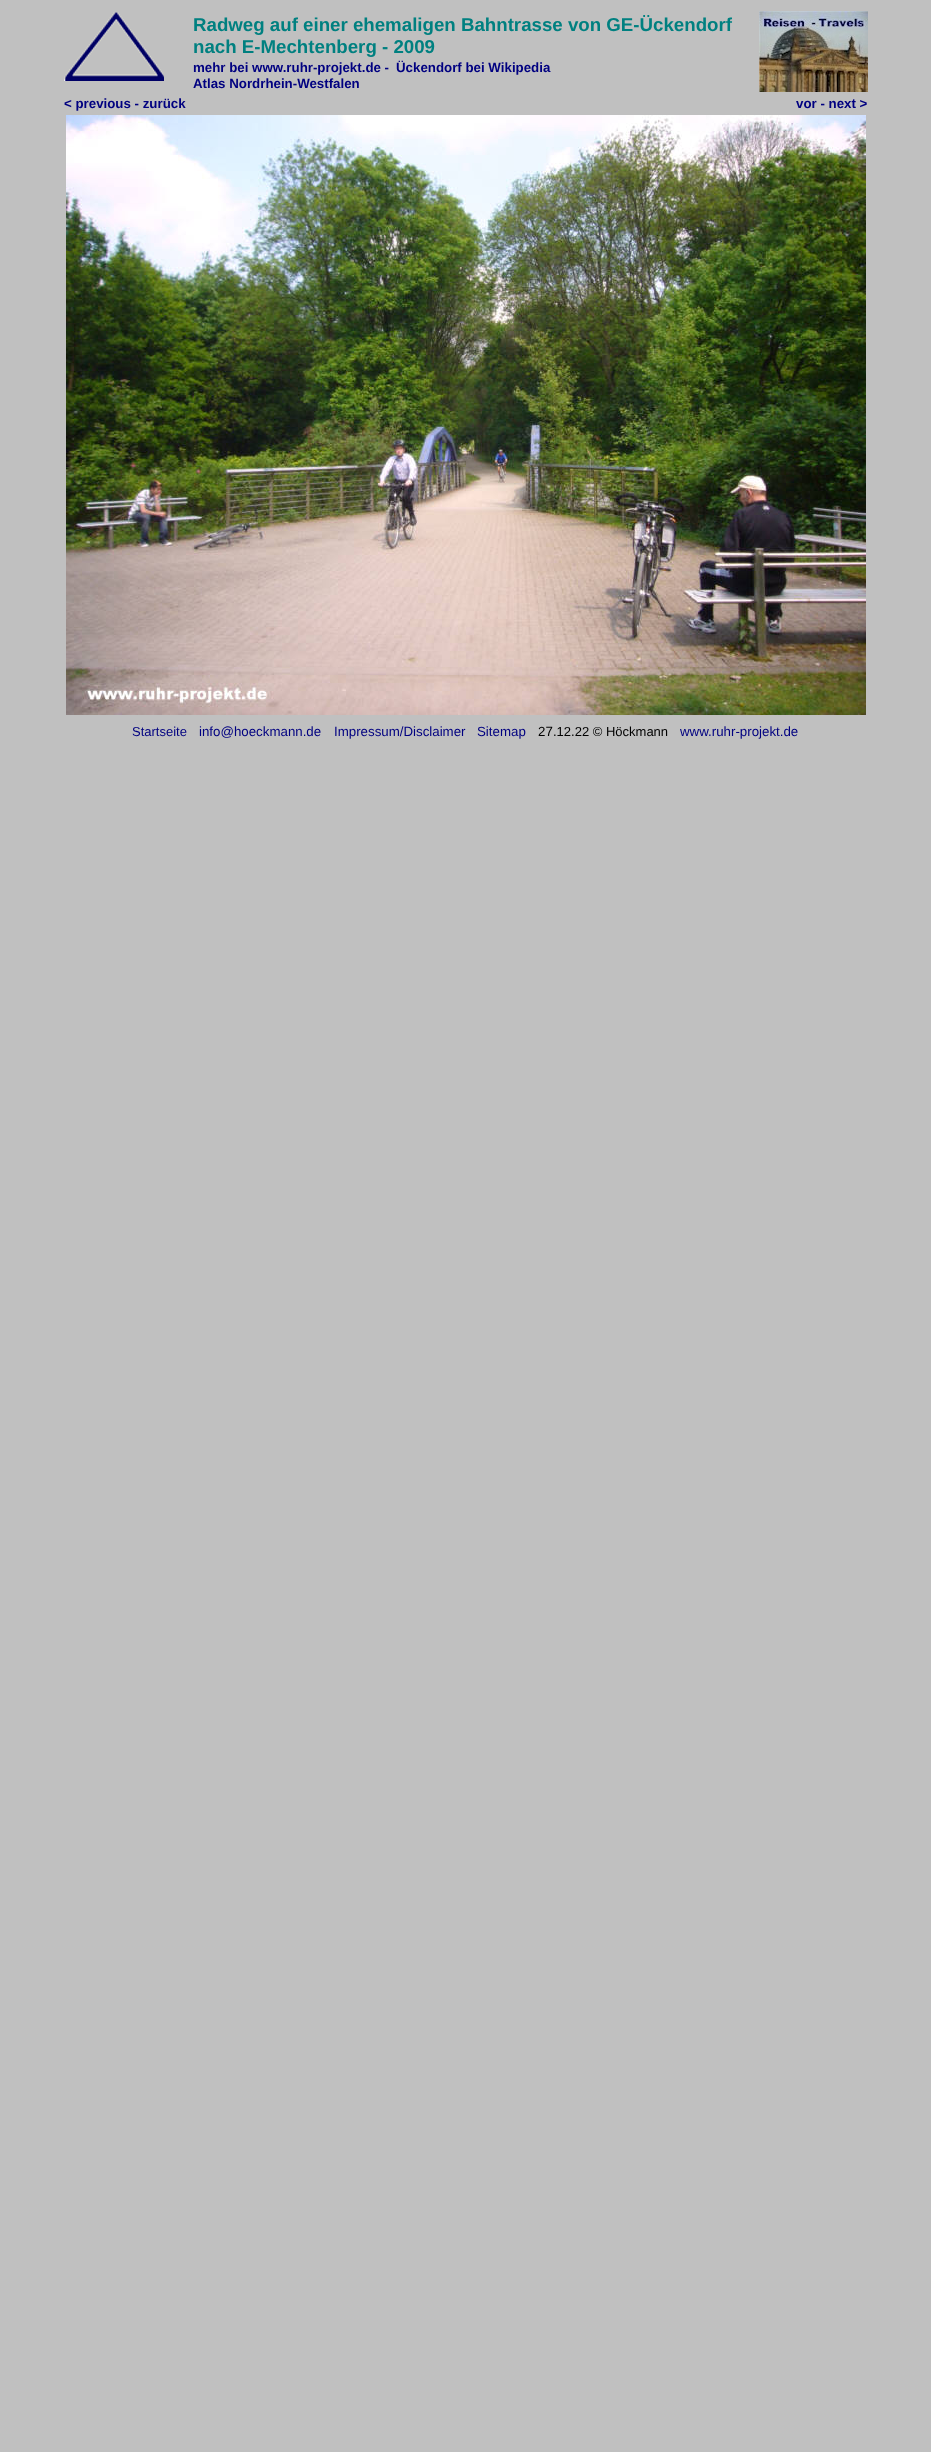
<!DOCTYPE html>
<meta charset="utf-8">
<style>body { margin: 0 } canvas { display: block }</style>
<canvas id="canvas" width="931" height="2452"></canvas>
<script type="module">
  const canvas = document.getElementById("canvas");
  const g = canvas.getContext("2d");
  g.miterLimit = 4;
  g.fontKerning = "normal";
  function drawText(s, x, y, [font, color]) {
    g.font = font;
    g.fillStyle = color;
    g.fillText(s, x, y);
  }
  function fillBox(x, y, w, h, color) {
    g.fillStyle = color;
    g.fillRect(x, y, w, h);
  }
  async function drawPicture(src, x, y, w, h) {
    const img = new Image();
    img.src = src;
    await img.decode();
    g.drawImage(img, x, y, w, h);
  }

  const s1 = ["bold 18.7px Liberation Sans", "#008080"];
  const s2 = ["bold 13.3px Liberation Sans", "#000080"];
  const s3 = ["13px Liberation Sans", "#000080"];
  const s4 = ["13.3px Liberation Sans", "#000080"];
  const s5 = ["13.3px Liberation Sans", "#000000"];
  const s6 = ["13px Liberation Sans", "#000000"];

  fillBox(0, 0, 931, 2452, "#C0C0C0");
  await drawPicture("pic1.png", 64, 12, 100, 69);
  drawText("Radweg auf einer ehemaligen Bahntrasse von GE-Ückendorf", 193, 31, s1);
  drawText("nach E-Mechtenberg - 2009", 193, 53, s1);
  drawText("mehr bei www.ruhr-projekt.de -", 193, 72, s2);
  drawText("Ückendorf bei Wikipedia", 396, 72, s2);
  drawText("Atlas Nordrhein-Westfalen", 193, 88, s2);
  await drawPicture("pic2.png", 759, 11, 109, 81);
  drawText("< previous - zurück", 64, 108, s2);
  drawText("vor - next >", 796, 108, s2);
  await drawPicture("pic3.png", 66, 115, 800, 600);
  drawText("Startseite", 132, 736, s3);
  drawText("info@hoeckmann.de", 199, 736, s4);
  drawText("Impressum/Disclaimer", 334, 736, s4);
  drawText("Sitemap", 477, 736, s4);
  drawText("27", 538, 736, s5);
  drawText(".12.22 © Höckmann", 553, 736, s6);
  drawText("www.ruhr-projekt.de", 680, 736, s4);
</script>
